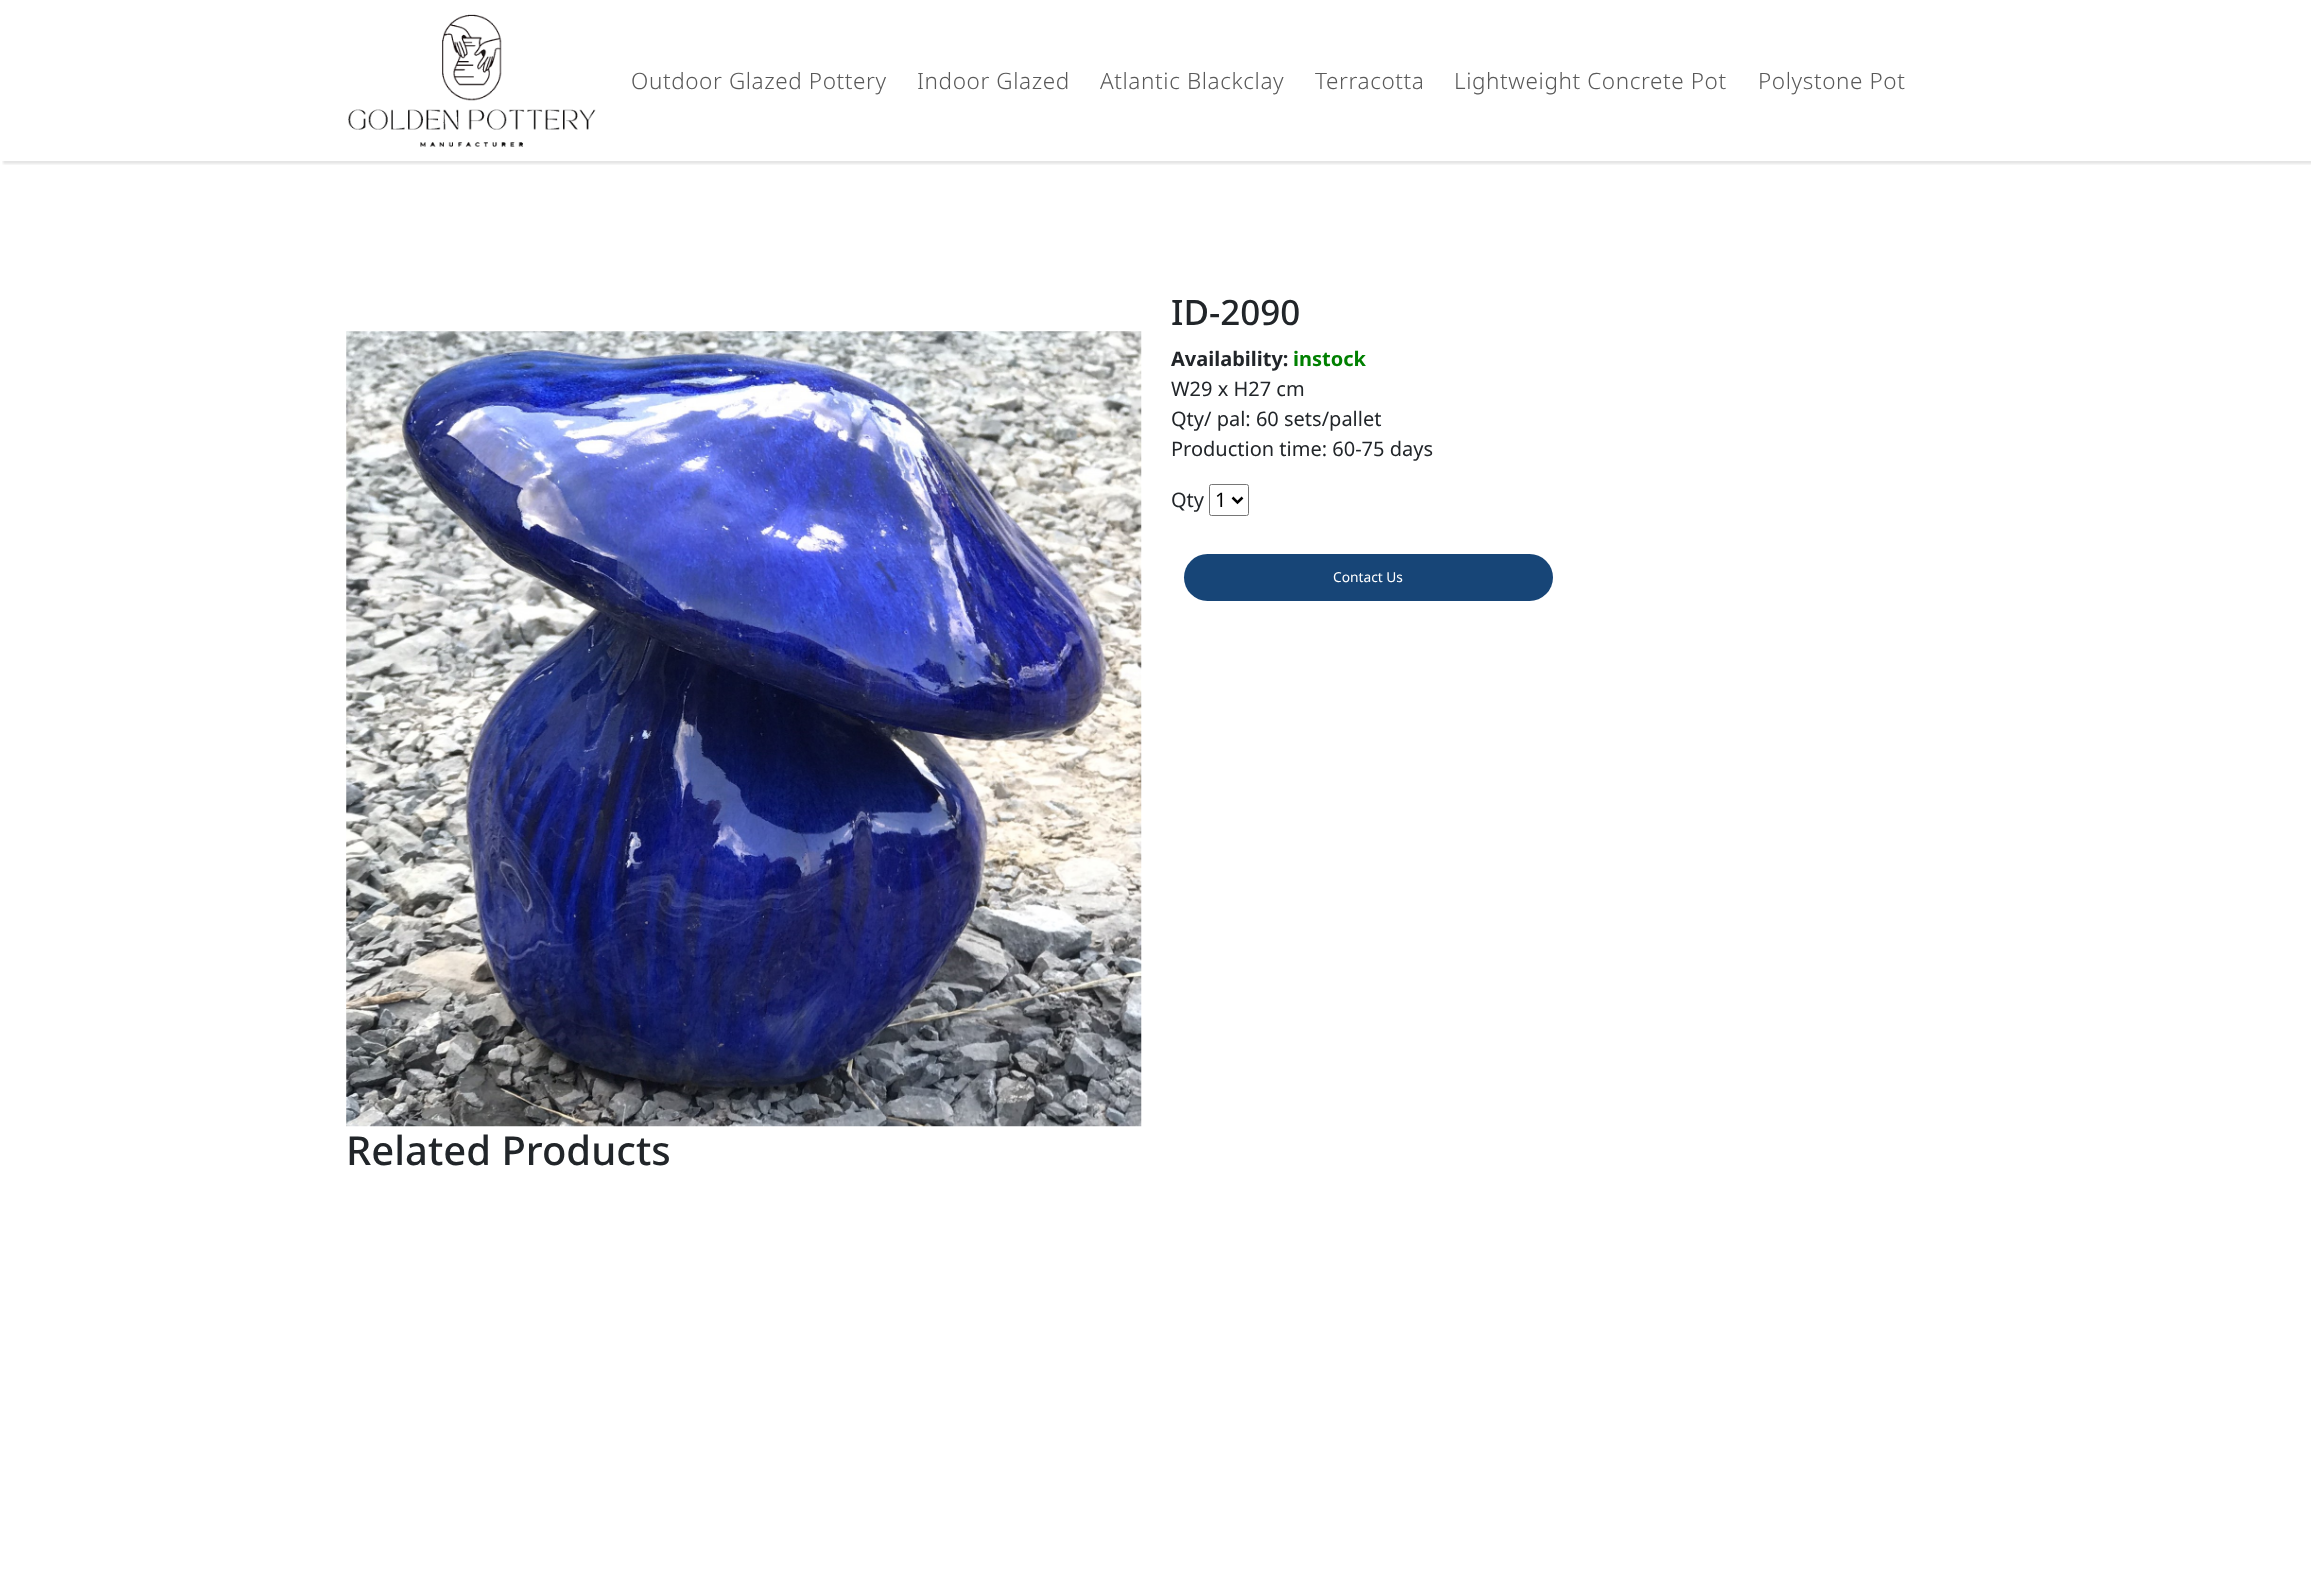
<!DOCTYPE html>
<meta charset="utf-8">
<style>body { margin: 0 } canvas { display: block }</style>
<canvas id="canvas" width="2311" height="1589"></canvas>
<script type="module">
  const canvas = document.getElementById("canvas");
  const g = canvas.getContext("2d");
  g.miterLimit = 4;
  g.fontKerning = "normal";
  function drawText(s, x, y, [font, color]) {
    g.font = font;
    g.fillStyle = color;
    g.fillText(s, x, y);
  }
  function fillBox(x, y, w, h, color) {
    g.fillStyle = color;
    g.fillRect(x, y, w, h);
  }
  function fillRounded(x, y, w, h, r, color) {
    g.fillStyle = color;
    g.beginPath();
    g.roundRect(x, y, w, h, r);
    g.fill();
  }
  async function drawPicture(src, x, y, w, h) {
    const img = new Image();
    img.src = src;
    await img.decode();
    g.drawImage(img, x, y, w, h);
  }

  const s1 = ["300 22.5px Noto Sans", "#595959"];
  const s2 = ["500 35px Noto Sans", "#212529"];
  const s3 = ["bold 20px Noto Sans", "#212529"];
  const s4 = ["bold 20px Noto Sans", "#008000"];
  const s5 = ["20px Noto Sans", "#212529"];
  const s6 = ["20px Noto Sans", "#000000"];
  const s7 = ["13.75px Noto Sans", "#FFFFFF"];
  const s8 = ["500 40px Noto Sans", "#212529"];

  fillBox(0, 0, 2311, 1589, "#FFFFFF");
  g.save();
  g.beginPath();
  g.rect(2, 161, 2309, 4);
  g.clip();
  g.fillStyle = "rgba(0, 0, 0, 0.1)";
  g.filter = "blur(1px)";
  g.beginPath();
  g.rect(3, 3, 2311, 161);
  g.fill();
  g.filter = "none";
  g.restore();
  await drawPicture("pic1.png", 348, 14, 248, 133);
  g.letterSpacing = "0.6px";
  drawText("Outdoor Glazed Pottery", 631, 89, s1);
  drawText("Indoor Glazed", 917, 89, s1);
  drawText("Atlantic Blackclay", 1100, 89, s1);
  drawText("Terracotta", 1315, 89, s1);
  drawText("Lightweight Concrete Pot", 1454, 89, s1);
  drawText("Polystone Pot", 1758, 89, s1);
  await drawPicture("pic2.png", 346, 331, 796, 796);
  g.letterSpacing = "0px";
  drawText("ID-2090", 1171, 325, s2);
  drawText("Availability:", 1171, 366, s3);
  drawText("instock", 1293, 366, s4);
  drawText("W29 x H27 cm", 1171, 396, s5);
  drawText("Qty/ pal: 60 sets/pallet", 1171, 426, s5);
  drawText("Production time: 60-75 days", 1171, 456, s5);
  drawText("Qty", 1171, 507, s5);
  g.beginPath();
  g.roundRect(1209.5, 484.5, 39, 31, 2);
  g.strokeStyle = "#767676";
  g.stroke();
  g.beginPath();
  g.moveTo(1232.5, 497.5);
  g.lineTo(1237.5, 502.5);
  g.lineTo(1242.5, 497.5);
  g.strokeStyle = "#000000";
  g.lineWidth = 2.5;
  g.stroke();
  drawText("1", 1215, 507, s6);
  fillRounded(1184, 554, 369, 47, 23.5, "#174577");
  drawText("Contact Us", 1333, 582, s7);
  drawText("Related Products", 346, 1165, s8);
</script>
